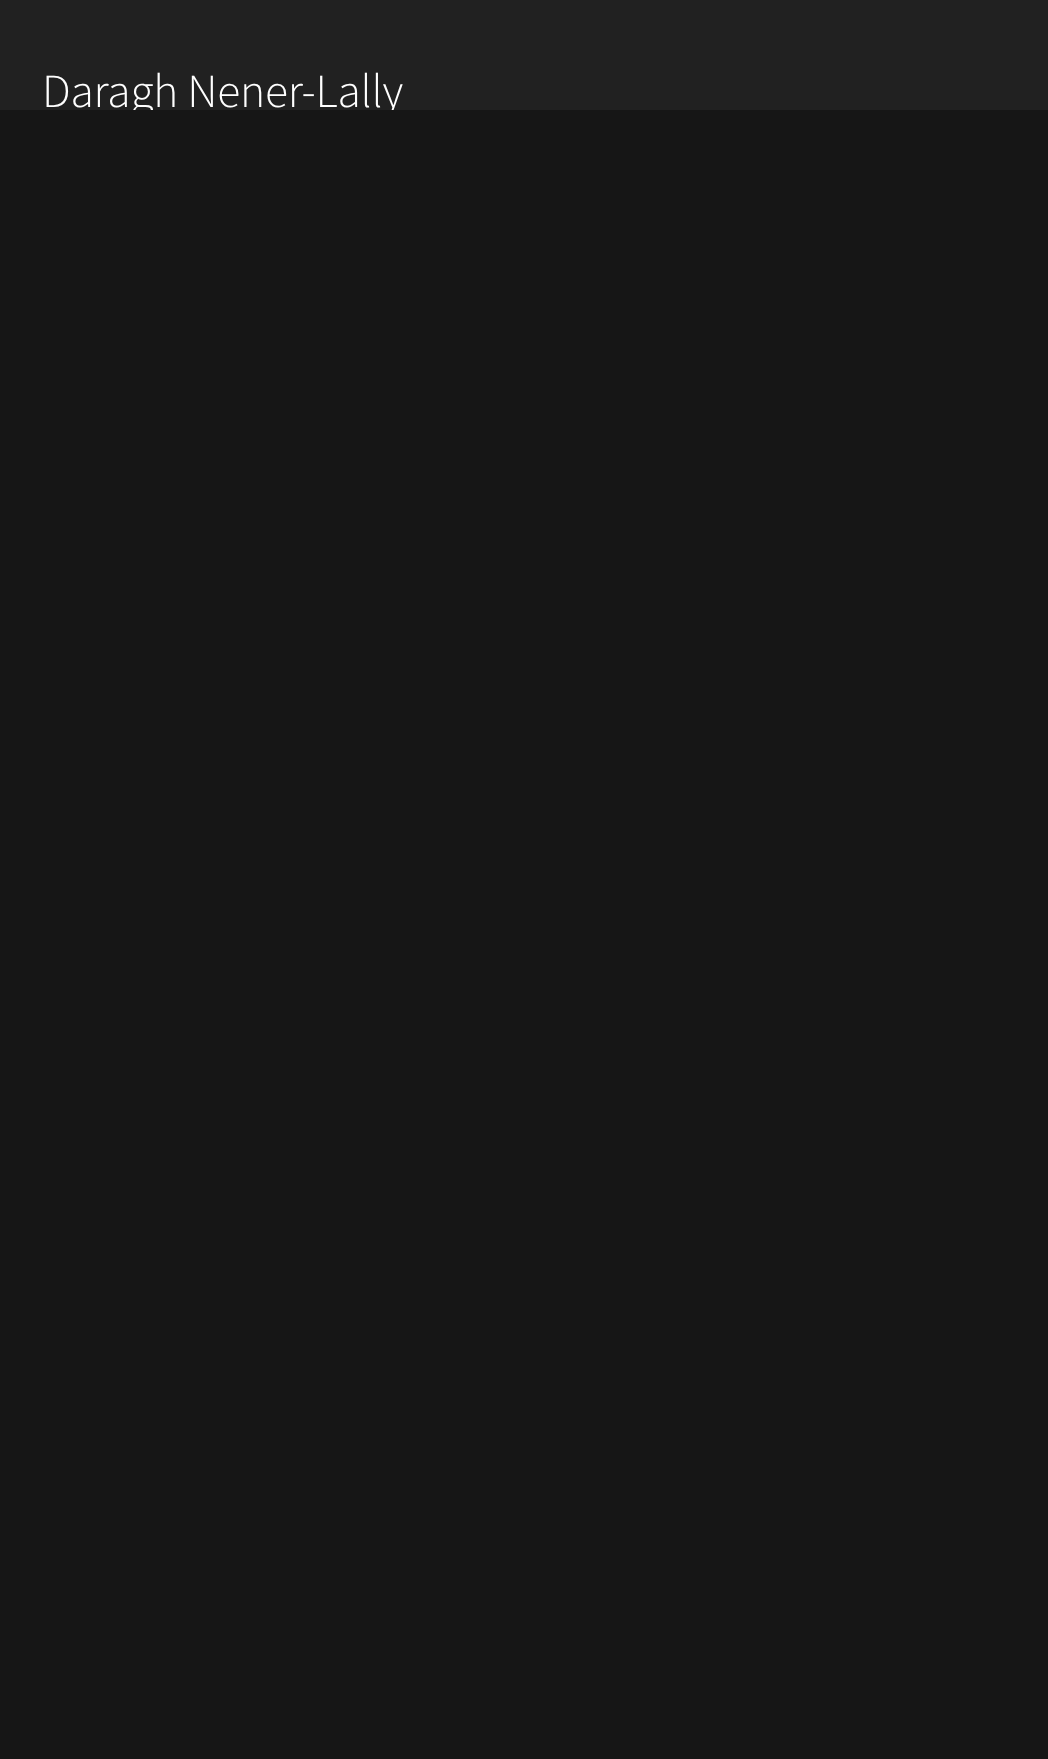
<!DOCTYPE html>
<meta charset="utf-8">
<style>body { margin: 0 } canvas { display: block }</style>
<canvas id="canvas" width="1048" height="1759"></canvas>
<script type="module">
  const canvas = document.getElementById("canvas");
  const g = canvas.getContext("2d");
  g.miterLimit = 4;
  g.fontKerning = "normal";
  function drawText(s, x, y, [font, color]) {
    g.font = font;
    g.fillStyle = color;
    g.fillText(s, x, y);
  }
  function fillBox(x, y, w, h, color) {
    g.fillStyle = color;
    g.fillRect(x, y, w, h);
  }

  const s1 = ["300 47.5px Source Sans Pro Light", "#FFFFFF"];

  fillBox(0, 0, 1048, 1759, "#212121");
  g.letterSpacing = "-0.25px";
  drawText("Daragh Nener-Lally", 42, 107, s1);
  fillBox(0, 110, 1048, 1649, "#161616");
</script>
